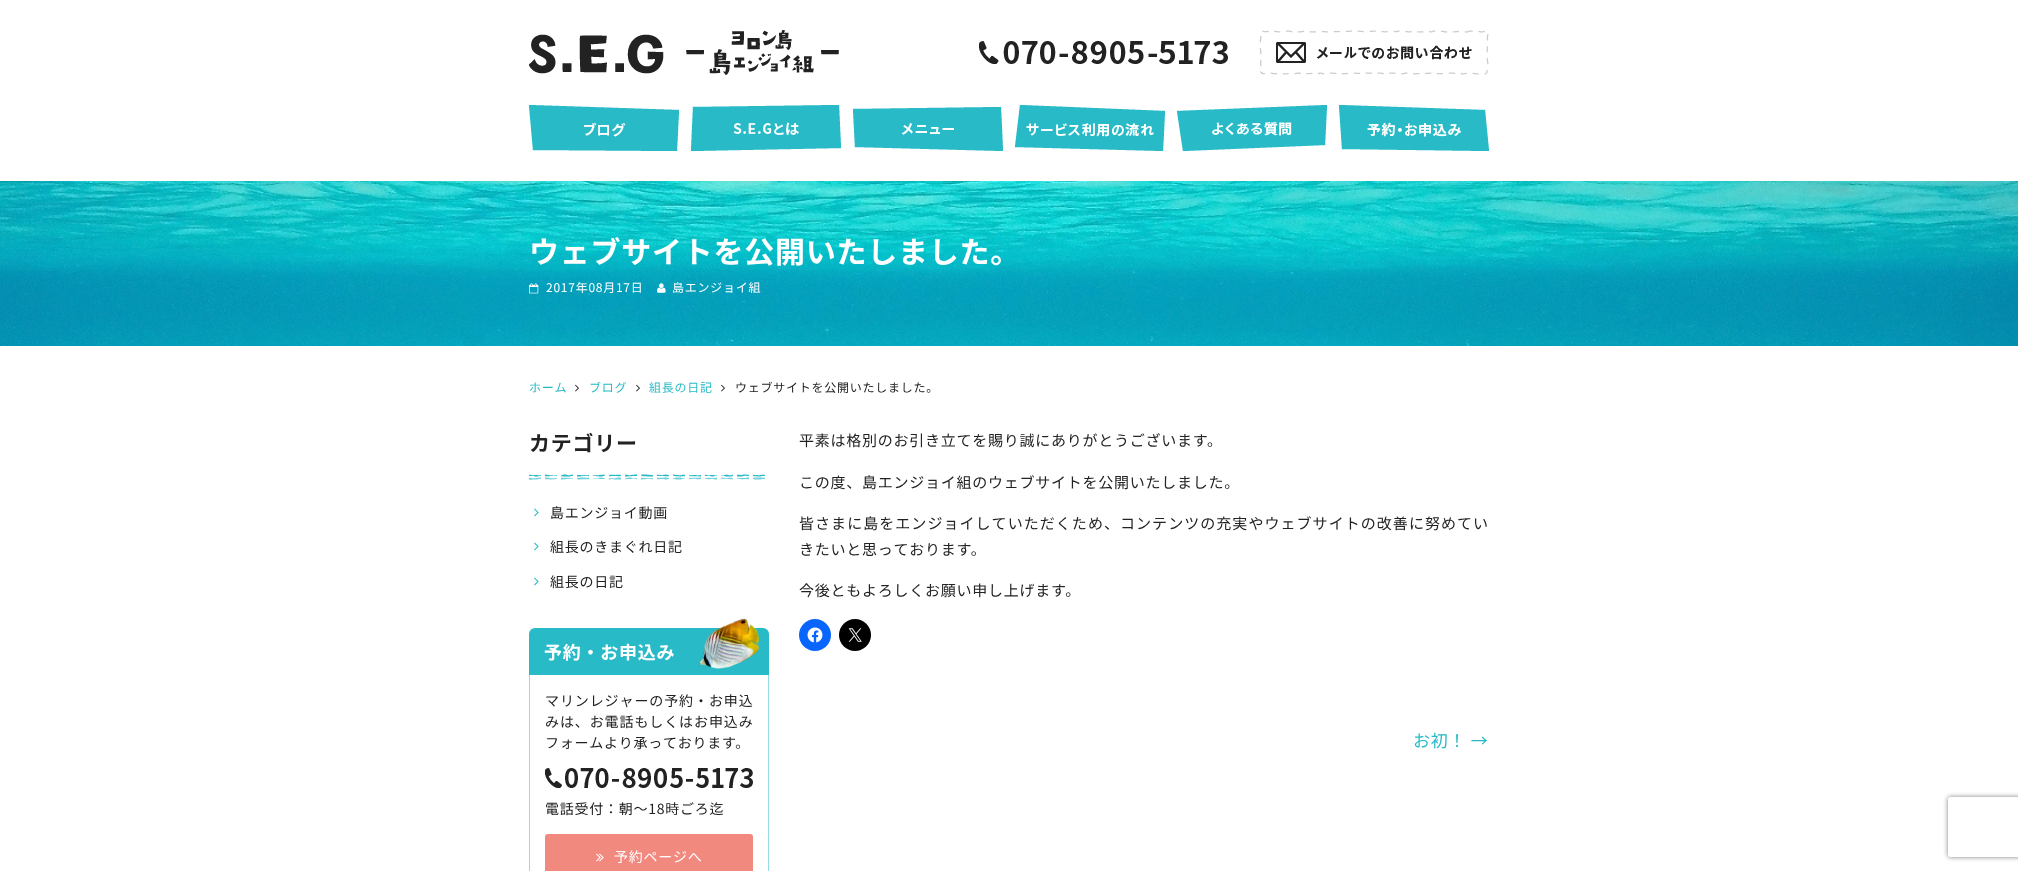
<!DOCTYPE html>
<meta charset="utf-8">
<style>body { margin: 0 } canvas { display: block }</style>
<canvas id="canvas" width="2018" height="871"></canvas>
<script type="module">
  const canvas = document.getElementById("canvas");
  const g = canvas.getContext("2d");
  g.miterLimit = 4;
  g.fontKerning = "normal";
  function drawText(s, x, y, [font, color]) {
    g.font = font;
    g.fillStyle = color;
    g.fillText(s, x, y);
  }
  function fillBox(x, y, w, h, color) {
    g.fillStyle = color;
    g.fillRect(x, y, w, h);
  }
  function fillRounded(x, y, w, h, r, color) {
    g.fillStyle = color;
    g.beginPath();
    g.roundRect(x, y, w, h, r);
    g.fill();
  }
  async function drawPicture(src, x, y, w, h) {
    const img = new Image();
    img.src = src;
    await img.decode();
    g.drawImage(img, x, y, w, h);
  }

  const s1 = ["bold 30px Noto Sans JP", "#FFFFFF"];
  const s2 = ["12px Noto Sans JP", "#FFFFFF"];
  const s3 = ["12px Noto Sans JP", "#28BAC7"];
  const s4 = ["12px Noto Sans JP", "#222222"];
  const s5 = ["bold 21px Noto Sans JP", "#222222"];
  const s6 = ["14px Noto Sans JP", "#222222"];
  const s7 = ["bold 18px Noto Sans JP", "#FFFFFF"];
  const s8 = ["14px Noto Sans JP", "#FFFFFF"];
  const s9 = ["15px Noto Sans JP", "#222222"];
  const s10 = ["17px Noto Sans JP", "#28BAC7"];

  fillBox(0, 0, 2018, 871, "#FFFFFF");
  await drawPicture("pic1.png", 529, 30, 310, 45);
  await drawPicture("pic2.png", 979, 41, 249, 23);
  await drawPicture("pic3.png", 1259, 30, 230, 45);
  await drawPicture("pic4.png", 529, 105, 150, 46);
  await drawPicture("pic5.png", 691, 105, 150, 46);
  await drawPicture("pic6.png", 853, 107, 150, 44);
  await drawPicture("pic7.png", 1015, 105, 150, 46);
  await drawPicture("pic8.png", 1177, 105, 150, 46);
  await drawPicture("pic9.png", 1339, 105, 150, 46);
  await drawPicture("pic10.png", 0, 181, 2018, 165);
  g.letterSpacing = "0.75px";
  drawText("ウェブサイトを公開いたしました。", 529, 263, s1);
  await drawPicture("pic11.png", 529, 283, 10, 11);
  drawText("2017年08月17日", 546, 292, s2);
  await drawPicture("pic12.png", 657, 283, 9, 10);
  drawText("島エンジョイ組", 672, 292, s2);
  drawText("ホーム", 529, 392, s3);
  await drawPicture("pic13.png", 575, 384, 4, 8);
  drawText("ブログ", 589, 392, s3);
  await drawPicture("pic13.png", 636, 384, 4, 8);
  drawText("組長の日記", 649, 392, s3);
  await drawPicture("pic13.png", 721, 384, 4, 8);
  drawText("ウェブサイトを公開いたしました。", 735, 392, s4);
  await drawPicture("pic14.png", 529, 474, 236, 6);
  drawText("カテゴリー", 529, 451, s5);
  await drawPicture("pic15.png", 534, 508, 5, 9);
  drawText("島エンジョイ動画", 550, 518, s6);
  await drawPicture("pic15.png", 534, 542, 5, 9);
  drawText("組長のきまぐれ日記", 550, 552, s6);
  await drawPicture("pic15.png", 534, 577, 5, 9);
  drawText("組長の日記", 550, 587, s6);
  g.fillStyle = "#28BAC7";
  g.beginPath();
  g.roundRect(529, 628, 240, 47, [6, 6, 0, 0]);
  g.fill();
  drawText("予約・お申込み", 544, 659, s7);
  await drawPicture("pic16.png", 699, 618, 60, 52);
  fillBox(768, 675, 1, 196, "#93DCE3");
  fillBox(529, 675, 1, 196, "#93DCE3");
  g.letterSpacing = "0.9px";
  drawText("マリンレジャーの予約・お申込", 545, 706, s6);
  drawText("みは、お電話もしくはお申込み", 545, 727, s6);
  g.letterSpacing = "0.75px";
  drawText("フォームより承っております。", 545, 748, s6);
  await drawPicture("pic17.png", 545, 768, 208, 20);
  drawText("電話受付：朝～18時ごろ迄", 545, 814, s6);
  fillRounded(545, 834, 208, 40, 3, "#F2897F");
  await drawPicture("pic18.png", 596, 853, 8, 9);
  drawText("予約ページへ", 614, 862, s8);
  drawText("平素は格別のお引き立てを賜り誠にありがとうございます。", 799, 446, s9);
  drawText("この度、島エンジョイ組のウェブサイトを公開いたしました。", 799, 488, s9);
  g.letterSpacing = "1.05px";
  drawText("皆さまに島をエンジョイしていただくため、コンテンツの充実やウェブサイトの改善に努めてい", 799, 529, s9);
  g.letterSpacing = "0.75px";
  drawText("きたいと思っております。", 799, 555, s9);
  drawText("今後ともよろしくお願い申し上げます。", 799, 596, s9);
  g.fillStyle = "#0866FF";
  g.beginPath();
  g.arc(815, 635, 16, 0, Math.PI * 2);
  g.fill();
  await drawPicture("pic19.png", 807, 627, 16, 16);
  g.fillStyle = "#000000";
  g.beginPath();
  g.arc(855, 635, 16, 0, Math.PI * 2);
  g.fill();
  await drawPicture("pic20.png", 848, 628, 14, 14);
  drawText("お初！ →", 1413, 747, s10);
  g.save();
  g.beginPath();
  g.moveTo(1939, 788);
  g.lineTo(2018, 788);
  g.lineTo(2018, 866);
  g.lineTo(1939, 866);
  g.closePath();
  g.moveTo(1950, 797);
  g.lineTo(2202, 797);
  g.bezierCurveTo(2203, 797, 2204, 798, 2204, 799);
  g.lineTo(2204, 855);
  g.bezierCurveTo(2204, 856, 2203, 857, 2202, 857);
  g.lineTo(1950, 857);
  g.bezierCurveTo(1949, 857, 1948, 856, 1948, 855);
  g.lineTo(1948, 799);
  g.bezierCurveTo(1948, 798, 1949, 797, 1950, 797);
  g.closePath();
  g.clip("evenodd");
  g.fillStyle = "#808080";
  g.filter = "blur(2.5px)";
  g.beginPath();
  g.roundRect(1948, 797, 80, 60, 2);
  g.fill();
  g.filter = "none";
  g.restore();
</script>
